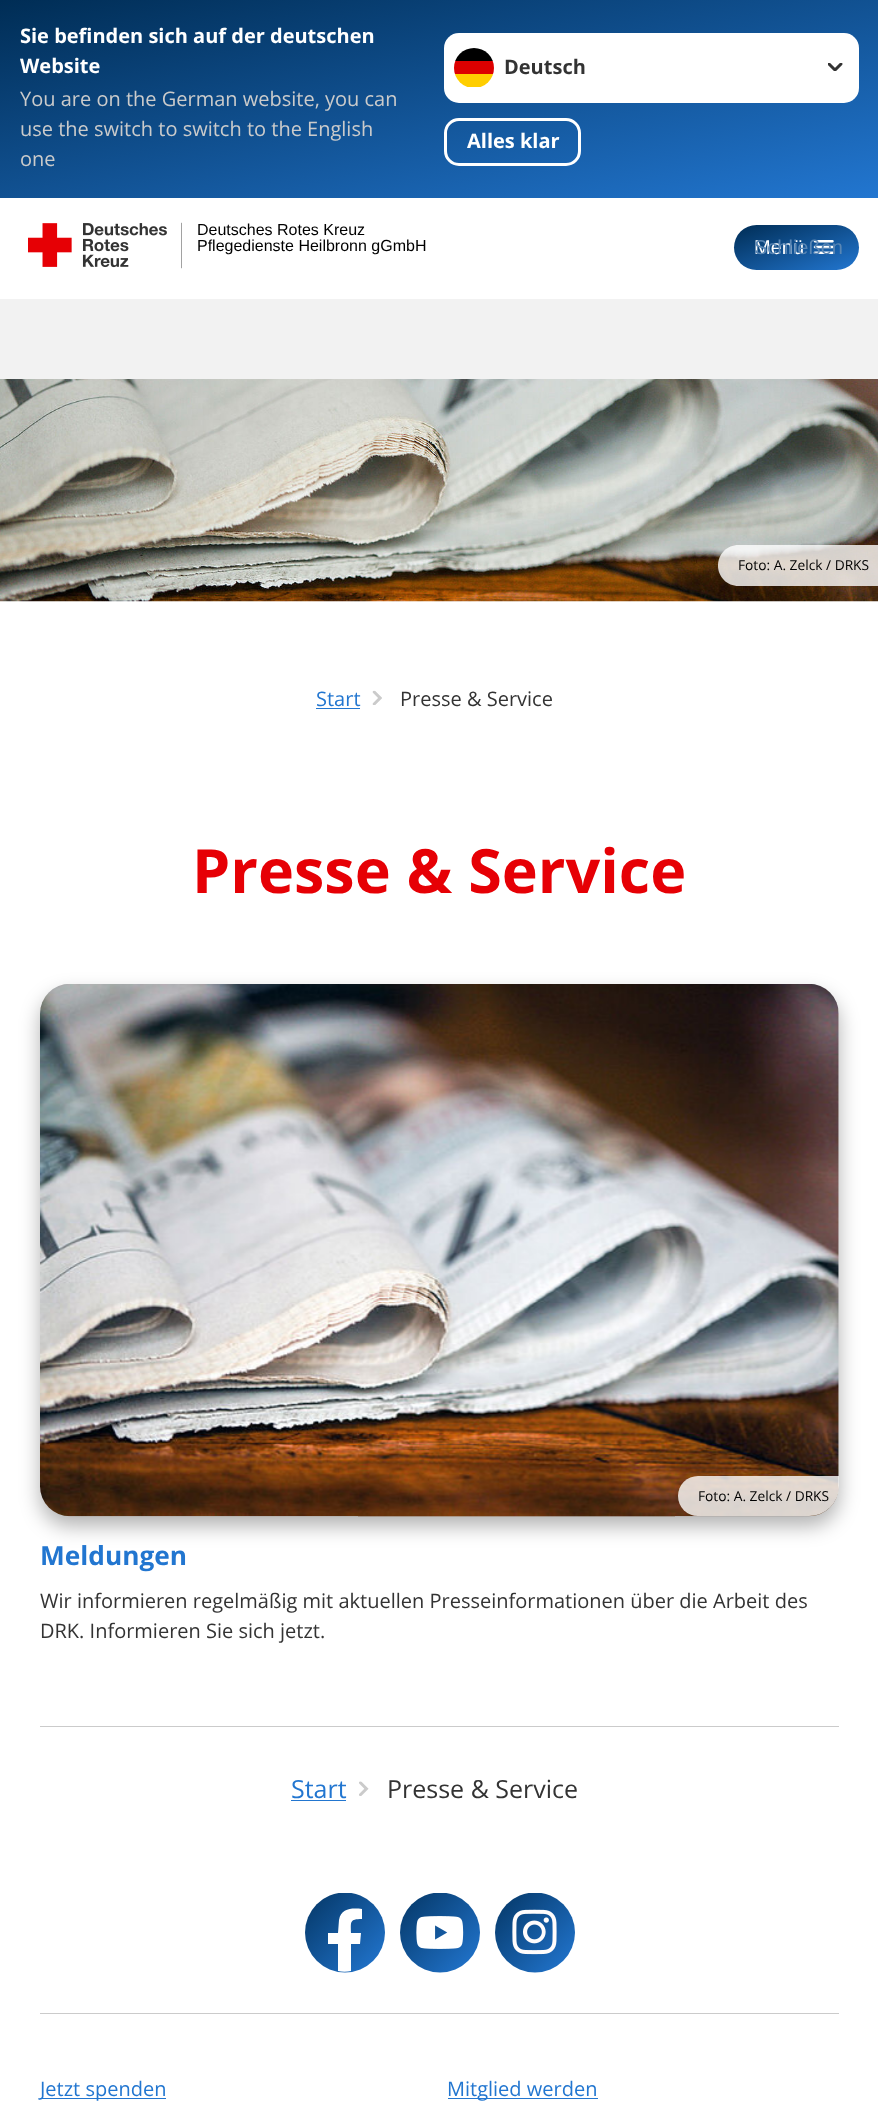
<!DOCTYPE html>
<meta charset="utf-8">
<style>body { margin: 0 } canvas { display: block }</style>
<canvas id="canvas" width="878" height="2101"></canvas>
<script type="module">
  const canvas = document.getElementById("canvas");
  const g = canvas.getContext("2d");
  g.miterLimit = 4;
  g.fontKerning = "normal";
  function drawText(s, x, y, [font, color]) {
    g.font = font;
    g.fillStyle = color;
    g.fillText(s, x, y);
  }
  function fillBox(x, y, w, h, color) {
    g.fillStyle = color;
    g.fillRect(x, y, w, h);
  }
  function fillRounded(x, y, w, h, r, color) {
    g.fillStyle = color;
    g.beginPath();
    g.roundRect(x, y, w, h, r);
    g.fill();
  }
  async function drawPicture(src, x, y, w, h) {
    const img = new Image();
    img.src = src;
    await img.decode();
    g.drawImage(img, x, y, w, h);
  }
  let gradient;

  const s1 = ["bold 20px Open Sans", "#FFFFFF"];
  const s2 = ["20px Open Sans", "#CBCBCB"];
  const s3 = ["bold 20px Open Sans", "#333333"];
  const s4 = ["16px Liberation Sans", "#000000"];
  const s5 = ["20px Liberation Sans", "#FFFFFF"];
  const s6 = ["20px Liberation Sans", "#5986B4"];
  const s7 = ["13.75px Open Sans", "#000000"];
  const s8 = ["20px Open Sans", "#2276D0"];
  const s9 = ["20px Open Sans", "#333333"];
  const s10 = ["bold 61px Open Sans", "#E60005"];
  const s11 = ["bold 26.25px Open Sans", "#2276D0"];
  const s12 = ["25px Open Sans", "#2276D0"];
  const s13 = ["25px Open Sans", "#333333"];

  fillBox(0, 0, 878, 2101, "#FFFFFF");
  gradient = g.createLinearGradient(397, -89, 482, 287);
  gradient.addColorStop(0, "#002D55");
  gradient.addColorStop(1, "#2276D0");
  g.fillStyle = gradient;
  g.fillRect(0, 0, 878, 198);
  drawText("Sie befinden sich auf der deutschen", 20, 43, s1);
  drawText("Website", 20, 73, s1);
  drawText("You are on the German website, you can", 20, 106, s2);
  drawText("use the switch to switch to the English", 20, 136, s2);
  drawText("one", 20, 166, s2);
  fillRounded(444, 33, 415, 70, 15, "#FFFFFF");
  g.save();
  g.beginPath();
  g.roundRect(454, 48, 40, 40, 20);
  g.clip();
  fillBox(455, 74, 38, 13, "#FFCE00");
  fillBox(455, 48, 38, 13, "#000000");
  fillBox(454, 61, 40, 13, "#DD0000");
  g.restore();
  await drawPicture("pic1.png", 828, 63, 15, 8);
  drawText("Deutsch", 504, 74, s3);
  g.beginPath();
  g.roundRect(445.5, 119.5, 134, 45, 13.5);
  g.strokeStyle = "#FFFFFF";
  g.lineWidth = 3;
  g.stroke();
  drawText("Alles klar", 467, 148, s1);
  await drawPicture("pic2.png", 28, 222, 154, 47);
  drawText("Deutsches Rotes Kreuz", 197, 235, s4);
  drawText("Pflegedienste Heilbronn gGmbH", 197, 251, s4);
  gradient = g.createLinearGradient(782, 208, 811, 287);
  gradient.addColorStop(0, "#002D55");
  gradient.addColorStop(1, "#2276D0");
  g.fillStyle = gradient;
  g.beginPath();
  g.roundRect(734, 225, 125, 45, 22.5);
  g.fill();
  await drawPicture("pic3.png", 813, 240, 21, 14);
  drawText("Menü", 754, 254, s5);
  drawText("Schließen", 754, 254, s6);
  fillBox(0, 299, 878, 80, "#F2F2F2");
  await drawPicture("pic4.png", 0, 379, 878, 223);
  g.fillStyle = "rgba(255, 255, 255, 0.8)";
  g.beginPath();
  g.moveTo(738.5, 545);
  g.lineTo(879, 545);
  g.lineTo(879, 586);
  g.lineTo(738.5, 586);
  g.bezierCurveTo(727, 586, 718, 577, 718, 565.5);
  g.bezierCurveTo(718, 554, 727, 545, 738.5, 545);
  g.closePath();
  g.fill();
  drawText("Foto: A. Zelck / DRKS", 738, 570, s7);
  drawText("Start", 316, 706, s8);
  fillBox(316, 708, 44, 1, "#2276D0");
  await drawPicture("pic5.png", 372, 690, 10, 15);
  drawText("Presse & Service", 400, 706, s9);
  drawText("Presse & Service", 192, 893, s10);
  g.fillStyle = "rgba(0, 0, 0, 0.3)";
  g.filter = "blur(10px)";
  g.beginPath();
  g.roundRect(40, 994, 799, 532, 30);
  g.fill();
  g.filter = "none";
  await drawPicture("pic6.png", 40, 984, 799, 533);
  g.fillStyle = "rgba(255, 255, 255, 0.8)";
  g.beginPath();
  g.roundRect(678, 1476, 161, 40, [20, 0, 30, 20]);
  g.fill();
  drawText("Foto: A. Zelck / DRKS", 698, 1501, s7);
  drawText("Meldungen", 40, 1565, s11);
  drawText("Wir informieren regelmäßig mit aktuellen Presseinformationen über die Arbeit des", 40, 1608, s9);
  drawText("DRK. Informieren Sie sich jetzt.", 40, 1638, s9);
  fillBox(40, 1726, 799, 1, "#CBCBCB");
  drawText("Start", 291, 1798, s12);
  fillBox(291, 1800, 55, 1, "#2276D0");
  await drawPicture("pic7.png", 359, 1781, 10, 15);
  drawText("Presse & Service", 387, 1798, s13);
  g.save();
  g.beginPath();
  g.rect(305, 1893, 80, 80);
  g.clip();
  gradient = g.createLinearGradient(295, 1881, 385, 1967);
  gradient.addColorStop(0, "#002D55");
  gradient.addColorStop(1, "#2276D0");
  g.fillStyle = gradient;
  g.beginPath();
  g.arc(345, 1932.5, 40, 0, Math.PI * 2);
  g.fill();
  g.restore();
  g.fillStyle = "#FFFFFF";
  g.beginPath();
  g.moveTo(338, 1971);
  g.lineTo(338, 1944);
  g.lineTo(328, 1944);
  g.lineTo(328, 1933);
  g.lineTo(338, 1933);
  g.lineTo(339, 1920);
  g.bezierCurveTo(341, 1908, 352, 1908, 362, 1909);
  g.lineTo(362, 1919);
  g.bezierCurveTo(349, 1919, 351, 1922, 351, 1933);
  g.lineTo(361, 1933);
  g.lineTo(360, 1944);
  g.lineTo(351, 1944);
  g.lineTo(351, 1971);
  g.bezierCurveTo(347, 1972, 342, 1972, 338, 1971);
  g.closePath();
  g.moveTo(316, 1906);
  g.bezierCurveTo(327, 1894, 344, 1890, 359, 1896);
  g.bezierCurveTo(344, 1890, 327, 1894, 316, 1906);
  g.closePath();
  g.fill("evenodd");
  g.save();
  g.beginPath();
  g.rect(400, 1893, 80, 80);
  g.clip();
  gradient = g.createLinearGradient(390, 1881, 480, 1967);
  gradient.addColorStop(0, "#002D55");
  gradient.addColorStop(1, "#2276D0");
  g.fillStyle = gradient;
  g.beginPath();
  g.arc(440, 1932.5, 40, 0, Math.PI * 2);
  g.fill();
  g.restore();
  await drawPicture("pic8.png", 416, 1916, 48, 33);
  g.save();
  g.beginPath();
  g.rect(495, 1893, 80, 80);
  g.clip();
  gradient = g.createLinearGradient(485, 1881, 575, 1967);
  gradient.addColorStop(0, "#002D55");
  gradient.addColorStop(1, "#2276D0");
  g.fillStyle = gradient;
  g.beginPath();
  g.arc(535, 1932.5, 40, 0, Math.PI * 2);
  g.fill();
  g.restore();
  await drawPicture("pic9.png", 512, 1909, 45, 46);
  fillBox(40, 2013, 799, 1, "#CBCBCB");
  fillBox(40, 2098, 126, 1, "#2276D0");
  drawText("Jetzt spenden", 40, 2096, s8);
  fillBox(448, 2098, 150, 1, "#2276D0");
  drawText("Mitglied werden", 447, 2096, s8);
</script>
